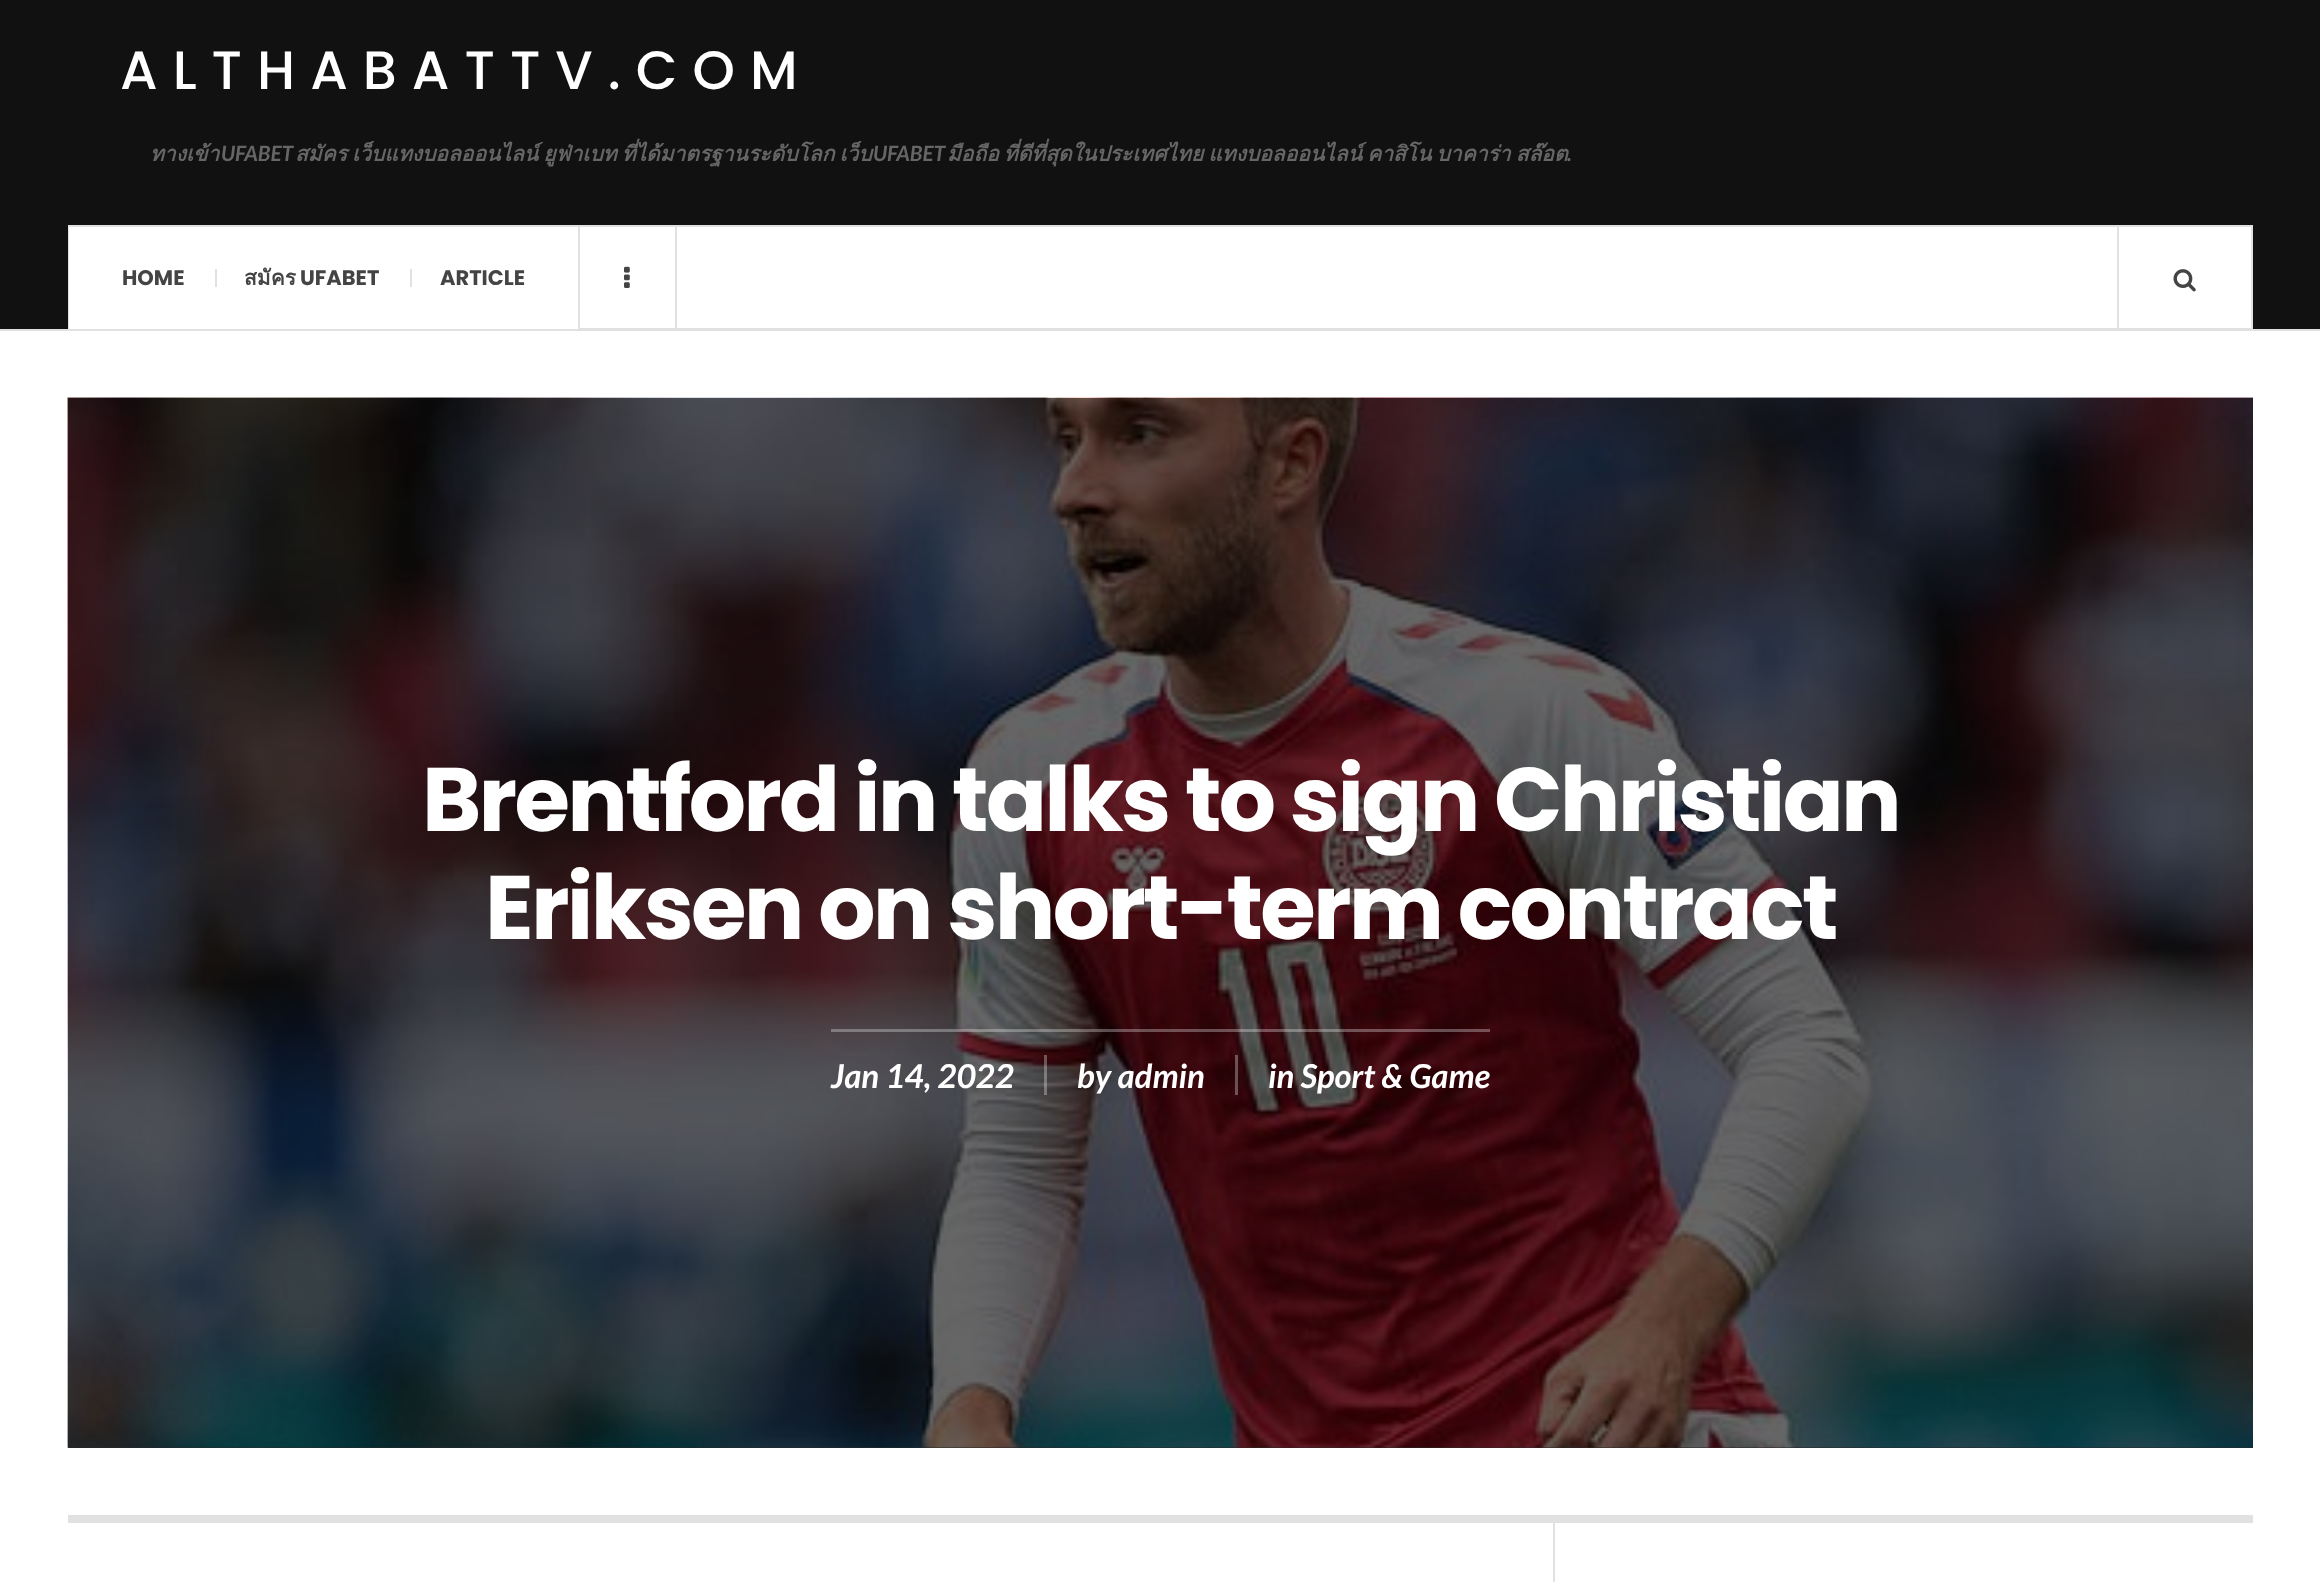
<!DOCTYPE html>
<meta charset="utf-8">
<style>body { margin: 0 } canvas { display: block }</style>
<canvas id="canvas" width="2320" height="1582"></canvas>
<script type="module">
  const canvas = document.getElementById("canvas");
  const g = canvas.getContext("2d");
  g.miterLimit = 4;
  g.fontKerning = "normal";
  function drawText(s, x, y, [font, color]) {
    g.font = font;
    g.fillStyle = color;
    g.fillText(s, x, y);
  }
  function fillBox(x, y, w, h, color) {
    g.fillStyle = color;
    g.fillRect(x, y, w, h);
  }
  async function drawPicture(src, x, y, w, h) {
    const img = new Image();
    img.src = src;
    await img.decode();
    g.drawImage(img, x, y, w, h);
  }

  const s1 = ["500 54px Poppins", "#FFFFFF"];
  const s2 = ["italic bold 21px Loma", "#666666"];
  const s3 = ["italic bold 21px Lato", "#666666"];
  const s4 = ["bold 21px Poppins", "#444444"];
  const s5 = ["bold 21px Loma", "#444444"];
  const s6 = ["bold 90px Poppins", "#FFFFFF"];
  const s7 = ["italic bold 33px Lato", "#FFFFFF"];

  fillBox(0, 0, 2320, 1582, "#FFFFFF");
  fillBox(0, 0, 2320, 329, "#111111");
  fillBox(0, 329, 2320, 2, "#E1E1E1");
  g.letterSpacing = "15px";
  drawText("ALTHABATTV.COM", 120, 89, s1);
  g.letterSpacing = "0px";
  drawText("ทางเข้า", 150, 161, s2);
  drawText("UFABET", 221, 161, s3);
  g.wordSpacing = "-2px";
  drawText("สมัคร เว็บแทงบอลออนไลน์ ยูฟ่าเบท ที่ได้มาตรฐานระดับโลก เว็บ", 295, 161, s2);
  g.wordSpacing = "0px";
  drawText("UFABET", 873, 161, s3);
  g.wordSpacing = "-2px";
  drawText("มือถือ ที่ดีที่สุดในประเทศไทย แทงบอลออนไลน์ คาสิโน บาคาร่า สล๊อต", 947, 161, s2);
  g.wordSpacing = "0px";
  drawText(".", 1567, 161, s3);
  fillBox(580, 227, 1671, 101, "#FFFFFF");
  g.strokeStyle = "#E1E1E1";
  g.lineWidth = 2;
  g.strokeRect(69, 226, 2183, 103);
  fillBox(69, 227, 509, 102, "#FFFFFF");
  fillBox(578, 227, 2, 102, "#E1E1E1");
  drawText("HOME", 122, 285, s4);
  fillBox(215, 269, 2, 18, "#E1E1E1");
  drawText("สมัคร", 244, 285, s5);
  drawText("UFABET", 300, 285, s4);
  fillBox(410, 269, 2, 18, "#E1E1E1");
  drawText("ARTICLE", 440, 285, s4);
  fillBox(675, 227, 2, 102, "#E1E1E1");
  await drawPicture("pic1.png", 624, 266, 6, 22);
  fillBox(2117, 227, 2, 102, "#E1E1E1");
  await drawPicture("pic2.png", 2173, 269, 23, 23);
  fillBox(68, 1447, 2185, 1, "#292929");
  await drawPicture("pic3.png", 67, 397, 2186, 1051);
  g.letterSpacing = "-2.7px";
  drawText("Brentford in talks to sign Christian", 422, 831, s6);
  drawText("Eriksen on short-term contract", 485, 939, s6);
  fillBox(831, 1029, 659, 3, "rgba(255, 255, 255, 0.3)");
  fillBox(1044, 1055, 3, 40, "rgba(255, 255, 255, 0.3)");
  g.letterSpacing = "0px";
  drawText("Jan 14, 2022", 831, 1088, s7);
  fillBox(1235, 1055, 3, 40, "rgba(255, 255, 255, 0.3)");
  drawText("by admin", 1077, 1088, s7);
  drawText("in Sport & Game", 1268, 1088, s7);
  fillBox(68, 1515, 2185, 8, "#E1E1E1");
  fillBox(1553, 1523, 2, 59, "#E1E1E1");
</script>
